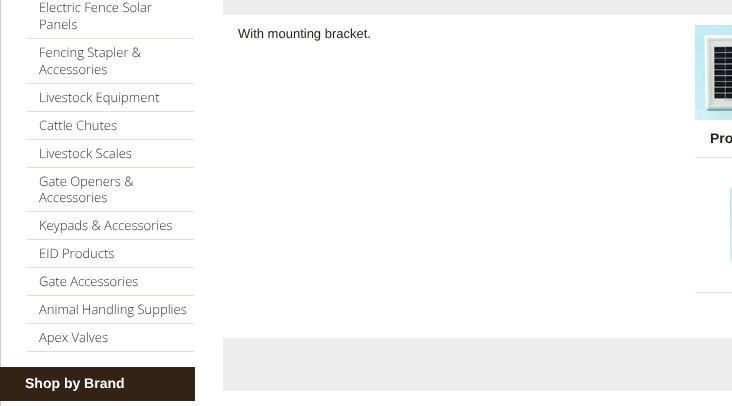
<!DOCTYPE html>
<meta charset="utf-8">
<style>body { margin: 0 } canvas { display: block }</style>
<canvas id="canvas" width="732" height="406"></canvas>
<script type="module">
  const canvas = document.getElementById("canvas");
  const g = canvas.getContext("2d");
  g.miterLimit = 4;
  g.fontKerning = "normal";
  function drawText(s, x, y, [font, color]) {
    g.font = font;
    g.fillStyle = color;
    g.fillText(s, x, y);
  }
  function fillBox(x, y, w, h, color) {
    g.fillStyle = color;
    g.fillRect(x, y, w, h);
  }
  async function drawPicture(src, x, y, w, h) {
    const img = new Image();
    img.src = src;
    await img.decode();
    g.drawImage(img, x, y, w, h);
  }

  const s1 = ["300 13px Open Sans", "#333333"];
  const s2 = ["bold 14px Liberation Sans", "#FFFFFF"];
  const s3 = ["13px Liberation Sans", "#251F1E"];
  const s4 = ["bold 14px Liberation Sans", "#251F1E"];

  fillBox(0, 0, 732, 406, "#FFFFFF");
  fillBox(0, 0, 1, 406, "#CFCECE");
  fillBox(27, 38, 167, 1, "#E0DFD4");
  drawText("Electric Fence Solar", 39, 12, s1);
  drawText("Panels", 39, 29, s1);
  fillBox(27, 83, 167, 1, "#E0DFD4");
  drawText("Fencing Stapler &", 39, 57, s1);
  drawText("Accessories", 39, 74, s1);
  fillBox(27, 111, 167, 1, "#E0DFD4");
  drawText("Livestock Equipment", 39, 102, s1);
  fillBox(27, 139, 167, 1, "#E0DFD4");
  drawText("Cattle Chutes", 39, 130, s1);
  fillBox(27, 167, 167, 1, "#E0DFD4");
  drawText("Livestock Scales", 39, 158, s1);
  fillBox(27, 211, 167, 1, "#E0DFD4");
  drawText("Gate Openers &", 39, 186, s1);
  drawText("Accessories", 39, 202, s1);
  fillBox(27, 239, 167, 1, "#E0DFD4");
  drawText("Keypads & Accessories", 39, 230, s1);
  fillBox(27, 267, 167, 1, "#E0DFD4");
  drawText("EID Products", 39, 258, s1);
  fillBox(27, 295, 167, 1, "#E0DFD4");
  drawText("Gate Accessories", 39, 286, s1);
  fillBox(27, 323, 167, 1, "#E0DFD4");
  drawText("Animal Handling Supplies", 39, 314, s1);
  fillBox(27, 351, 167, 1, "#E0DFD4");
  drawText("Apex Valves", 39, 342, s1);
  fillBox(0, 367, 195, 34, "#342214");
  drawText("Shop by Brand", 25, 388, s2);
  fillBox(223, 0, 509, 15, "#EDEDED");
  drawText("With mounting bracket.", 238, 38, s3);
  await drawPicture("pic1.png", 695, 25, 37, 95);
  fillBox(695, 157, 37, 1, "#E3E3E3");
  drawText("Pro", 710, 143, s4);
  fillBox(695, 292, 37, 1, "#E3E3E3");
  await drawPicture("pic2.png", 730, 188, 2, 73);
  fillBox(223, 338, 509, 53, "#EDEDED");
</script>
